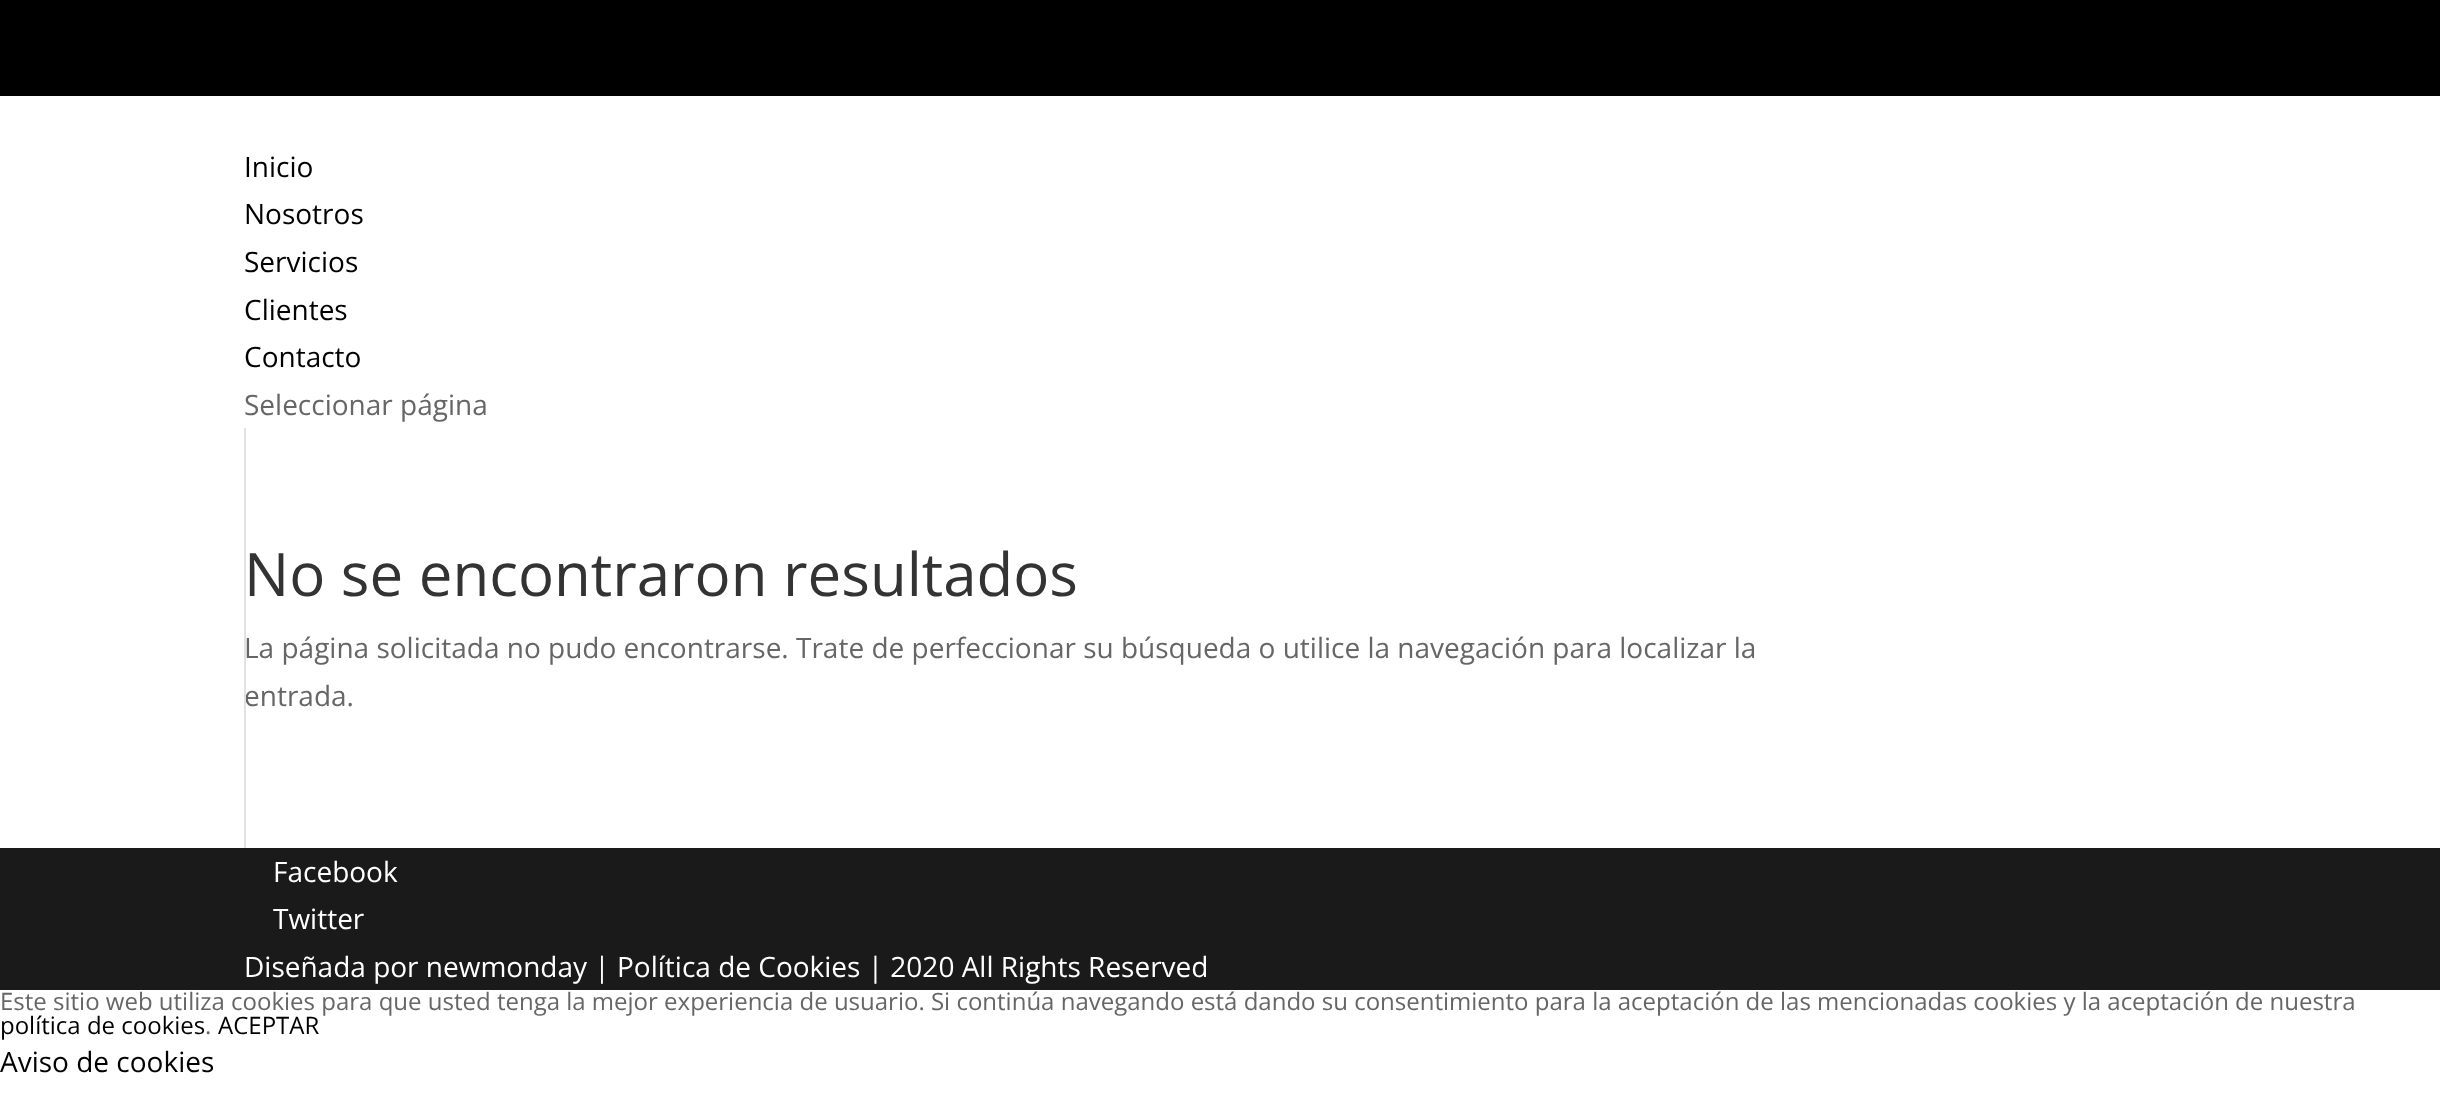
<!DOCTYPE html>
<meta charset="utf-8">
<style>body { margin: 0 } canvas { display: block }</style>
<canvas id="canvas" width="2440" height="1115"></canvas>
<script type="module">
  const canvas = document.getElementById("canvas");
  const g = canvas.getContext("2d");
  g.miterLimit = 4;
  g.fontKerning = "normal";
  function drawText(s, x, y, [font, color]) {
    g.font = font;
    g.fillStyle = color;
    g.fillText(s, x, y);
  }
  function fillBox(x, y, w, h, color) {
    g.fillStyle = color;
    g.fillRect(x, y, w, h);
  }

  const s1 = ["28px Open Sans", "#000000"];
  const s2 = ["28px Open Sans", "#666666"];
  const s3 = ["60px Open Sans", "#333333"];
  const s4 = ["28px Open Sans", "#FFFFFF"];
  const s5 = ["24px Open Sans", "#666666"];
  const s6 = ["24px Open Sans", "#000000"];

  fillBox(0, 0, 2440, 1115, "#FFFFFF");
  fillBox(0, 0, 2440, 96, "#000000");
  drawText("Inicio", 244, 177, s1);
  drawText("Nosotros", 244, 224, s1);
  drawText("Servicios", 244, 272, s1);
  drawText("Clientes", 244, 320, s1);
  drawText("Contacto", 244, 367, s1);
  drawText("Seleccionar página", 244, 415, s2);
  drawText("entrada.", 244, 706, s2);
  fillBox(244, 428, 2, 420, "#E2E2E2");
  drawText("No se encontraron resultados", 244, 596, s3);
  drawText("La página solicitada no pudo encontrarse. Trate de perfeccionar su búsqueda o utilice la navegación para localizar la", 244, 658, s2);
  fillBox(0, 848, 2440, 142, "#1A1A1A");
  drawText("Facebook", 273, 882, s4);
  drawText("Twitter", 273, 929, s4);
  drawText("Diseñada por newmonday | Política de Cookies | 2020 All Rights Reserved", 244, 977, s4);
  drawText("Este sitio web utiliza cookies para que usted tenga la mejor experiencia de usuario. Si continúa navegando está dando su consentimiento para la aceptación de las mencionadas cookies y la aceptación de nuestra", 0, 1010, s5);
  drawText("política de cookies", 0, 1034, s6);
  drawText(".", 205, 1034, s5);
  drawText("ACEPTAR", 218, 1034, s6);
  drawText("Aviso de cookies", 0, 1072, s1);
</script>
